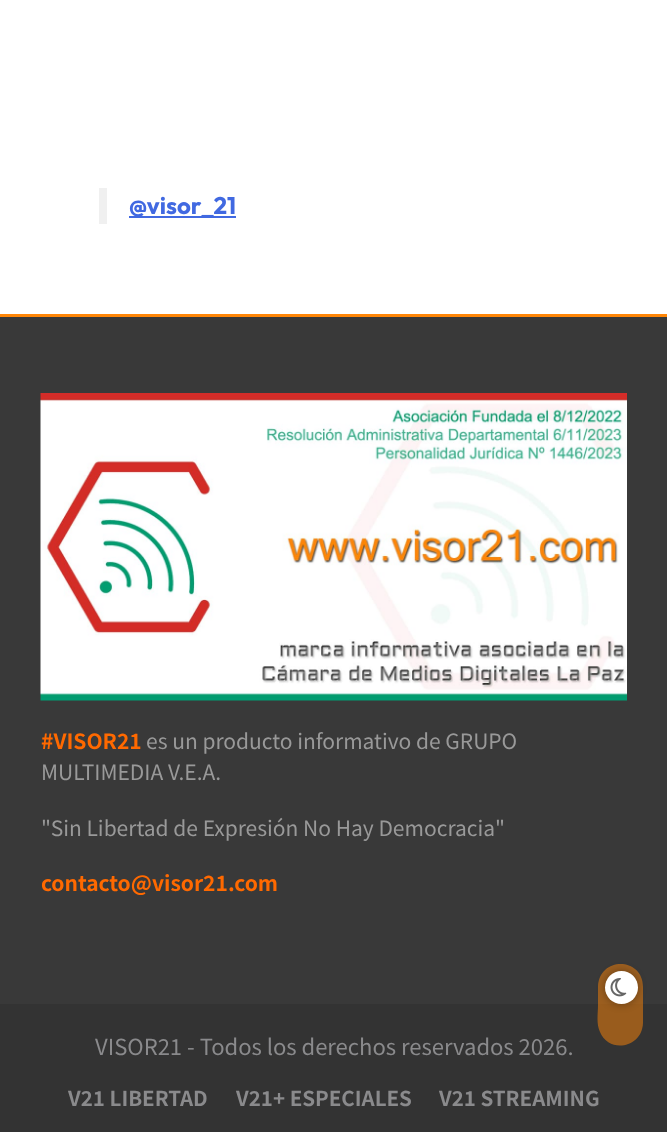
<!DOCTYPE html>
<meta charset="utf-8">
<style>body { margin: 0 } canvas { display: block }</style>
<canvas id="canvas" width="667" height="1132"></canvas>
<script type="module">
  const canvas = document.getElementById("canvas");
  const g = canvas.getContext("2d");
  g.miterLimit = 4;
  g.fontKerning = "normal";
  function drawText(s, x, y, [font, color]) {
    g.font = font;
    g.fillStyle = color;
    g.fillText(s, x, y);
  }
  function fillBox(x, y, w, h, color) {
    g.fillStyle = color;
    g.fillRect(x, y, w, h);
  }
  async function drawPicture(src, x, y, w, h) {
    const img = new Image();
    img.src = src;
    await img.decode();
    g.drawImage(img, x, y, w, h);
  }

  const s1 = ["100 24px Outfit", "#4169E1"];
  const s2 = ["bold 21px Noto Sans JP", "#FF6900"];
  const s3 = ["21px Noto Sans JP", "#999999"];
  const s4 = ["22.05px Noto Sans JP", "#8A8A8C"];
  const s5 = ["bold 20.5px Noto Sans JP", "#8A8A8C"];

  fillBox(0, 0, 667, 1132, "#FFFFFF");
  fillBox(99, 188, 8, 36, "#F0F0F0");
  fillBox(129, 216, 107, 2, "#4169E1");
  drawText("@visor_21", 129, 214, s1);
  fillBox(0, 314, 667, 3, "#FF8607");
  fillBox(0, 317, 667, 687, "#393939");
  await drawPicture("pic1.png", 40, 393, 587, 308);
  drawText("#VISOR21", 41, 749, s2);
  drawText("es un producto informativo de GRUPO", 146, 749, s3);
  drawText("MULTIMEDIA V.E.A.", 41, 780, s3);
  drawText("\"Sin Libertad de Expresión No Hay Democracia\"", 41, 836, s3);
  drawText("contacto@visor21.com", 41, 891, s2);
  fillBox(0, 1004, 667, 128, "#333333");
  drawText("VISOR21 - Todos los derechos reservados 2026.", 95, 1055, s4);
  drawText("V21 LIBERTAD", 68, 1106, s5);
  drawText("V21+ ESPECIALES", 236, 1106, s5);
  drawText("V21 STREAMING", 439, 1106, s5);
  g.fillStyle = "rgba(255, 134, 7, 0.5)";
  g.beginPath();
  g.moveTo(643, 987);
  g.lineTo(643, 1023);
  g.bezierCurveTo(642, 1048, 609, 1054, 600, 1032);
  g.bezierCurveTo(596, 1024, 598, 1013, 598, 1005);
  g.lineTo(598, 987);
  g.bezierCurveTo(599, 956, 643, 957, 643, 987);
  g.closePath();
  g.fill();
  g.fillStyle = "rgba(0, 0, 0, 0.35)";
  g.filter = "blur(4px)";
  g.beginPath();
  g.roundRect(605, 971, 33, 33, 16.5);
  g.fill();
  g.filter = "none";
  g.fillStyle = "#FFFFFF";
  g.beginPath();
  g.arc(621.5, 987.5, 16.5, 0, Math.PI * 2);
  g.fill();
  await drawPicture("pic2.png", 610, 978, 17, 19);
</script>
